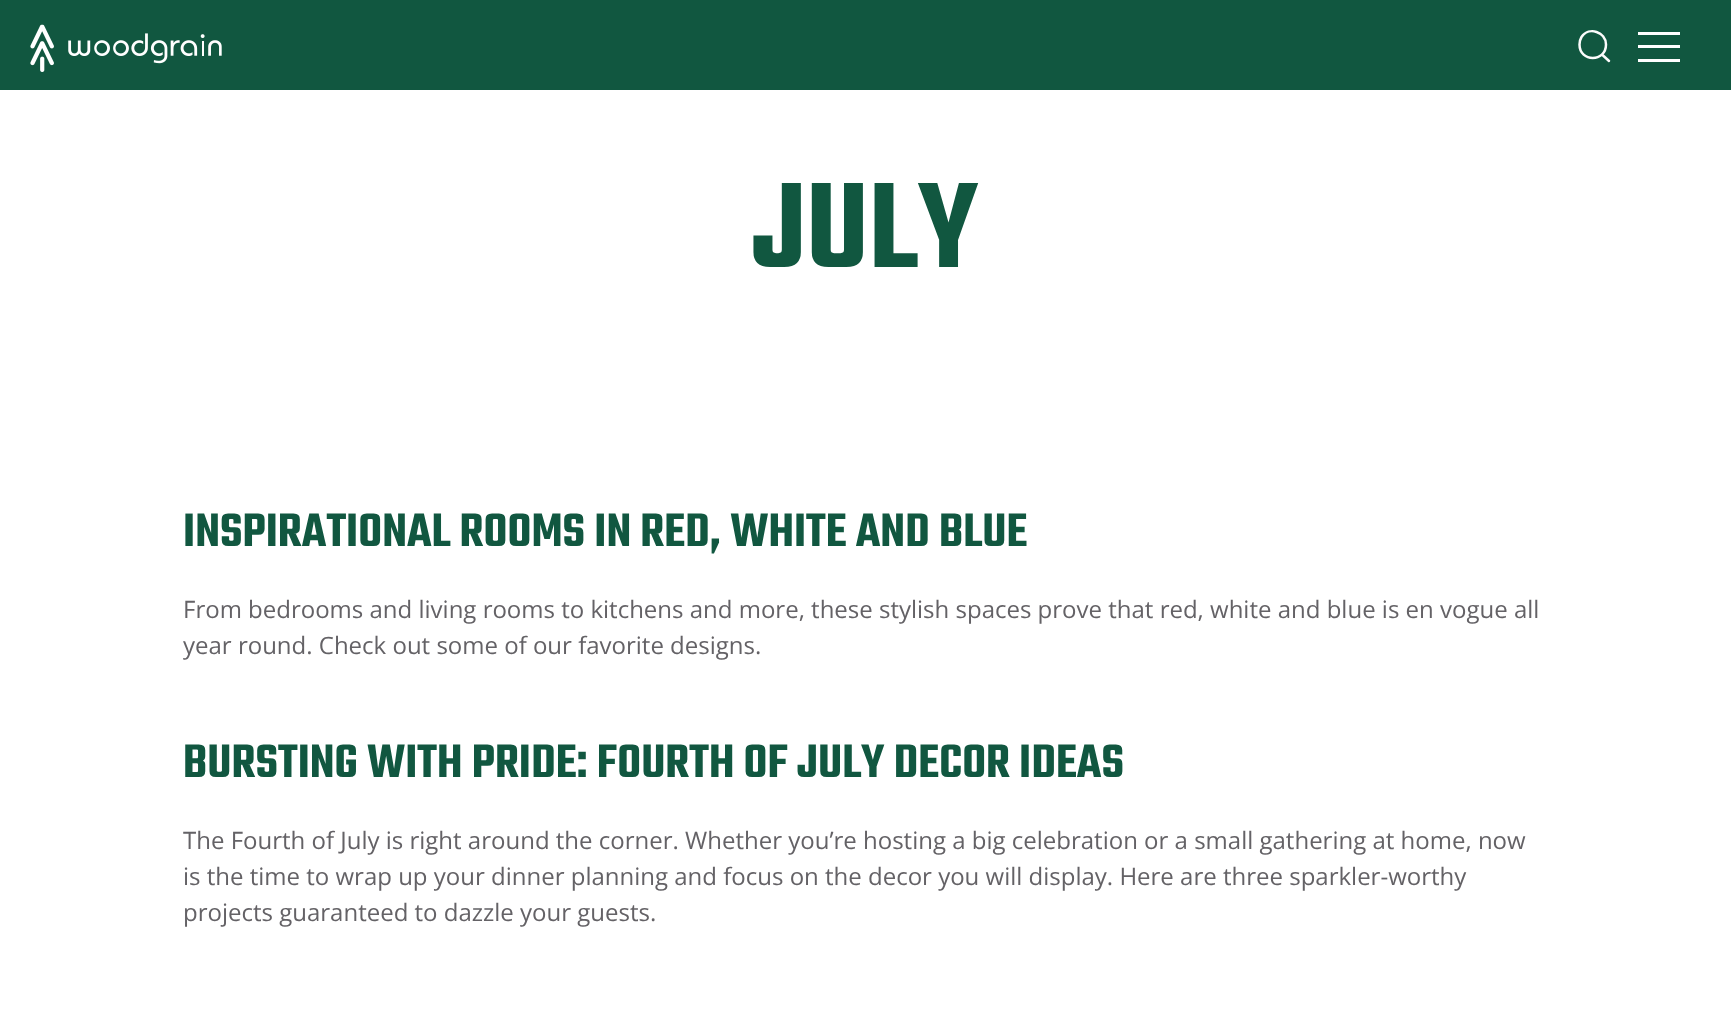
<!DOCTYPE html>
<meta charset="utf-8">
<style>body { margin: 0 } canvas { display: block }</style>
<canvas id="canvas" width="1731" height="1023"></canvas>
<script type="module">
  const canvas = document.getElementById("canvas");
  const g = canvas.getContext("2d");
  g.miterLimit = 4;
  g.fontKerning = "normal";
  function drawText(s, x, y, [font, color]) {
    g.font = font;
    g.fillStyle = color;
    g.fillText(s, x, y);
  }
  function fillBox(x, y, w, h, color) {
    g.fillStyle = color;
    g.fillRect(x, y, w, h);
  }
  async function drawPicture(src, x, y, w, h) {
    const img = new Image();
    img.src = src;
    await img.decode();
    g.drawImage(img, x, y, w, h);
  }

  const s1 = ["600 132px Teko", "#115740"];
  const s2 = ["600 51px Teko", "#115740"];
  const s3 = ["24px Open Sans", "#646266"];

  fillBox(0, 0, 1731, 1023, "#FFFFFF");
  fillBox(0, 0, 1731, 90, "#115740");
  await drawPicture("pic1.png", 30, 24, 192, 48);
  g.beginPath();
  g.moveTo(1606, 44.5);
  g.bezierCurveTo(1606, 62.5, 1579.5, 62.5, 1579.5, 44.5);
  g.bezierCurveTo(1579.5, 42, 1580, 39.5, 1581.5, 37);
  g.bezierCurveTo(1589, 26, 1606, 32, 1606, 44.5);
  g.closePath();
  g.moveTo(1609, 61);
  g.lineTo(1602.5, 55);
  g.strokeStyle = "#FCFCFC";
  g.lineWidth = 2.5;
  g.lineCap = "round";
  g.lineJoin = "round";
  g.stroke();
  fillBox(1638, 32, 42, 3, "#FFFFFF");
  fillBox(1638, 45, 42, 3, "#FFFFFF");
  fillBox(1638, 59, 42, 3, "#FFFFFF");
  drawText("JULY", 752, 267, s1);
  drawText("INSPIRATIONAL ROOMS IN RED, WHITE AND BLUE", 183, 546, s2);
  drawText("From bedrooms and living rooms to kitchens and more, these stylish spaces prove that red, white and blue is en vogue all", 183, 618, s3);
  drawText("year round. Check out some of our favorite designs.", 183, 654, s3);
  drawText("BURSTING WITH PRIDE: FOURTH OF JULY DECOR IDEAS", 183, 777, s2);
  drawText("The Fourth of July is right around the corner. Whether you’re hosting a big celebration or a small gathering at home, now", 183, 849, s3);
  drawText("is the time to wrap up your dinner planning and focus on the decor you will display. Here are three sparkler-worthy", 183, 885, s3);
  drawText("projects guaranteed to dazzle your guests.", 183, 921, s3);
</script>
